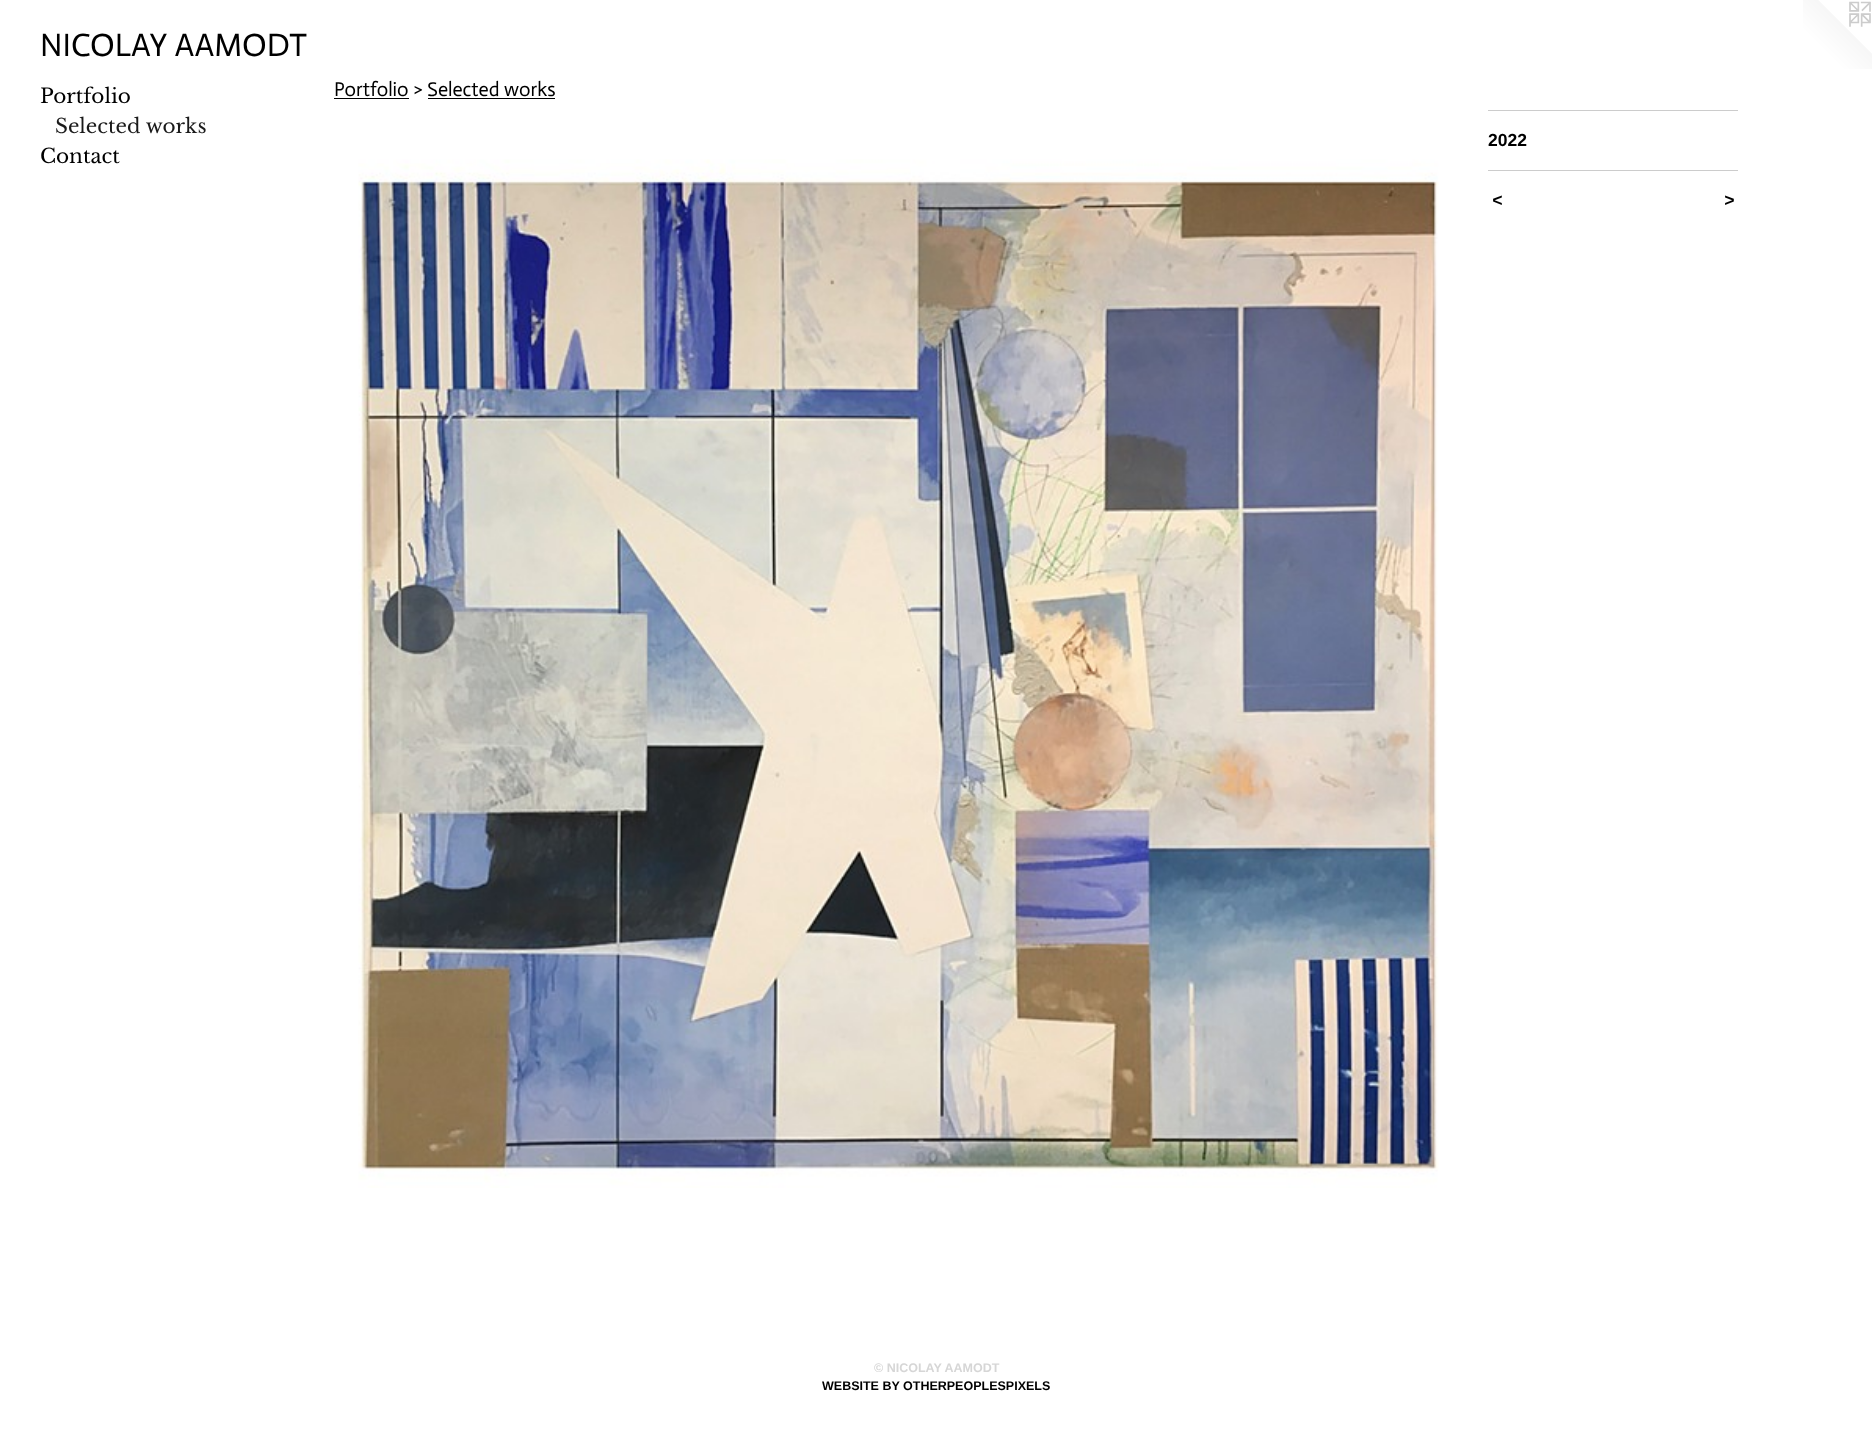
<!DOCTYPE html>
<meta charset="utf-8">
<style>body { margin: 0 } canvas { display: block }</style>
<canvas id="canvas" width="1872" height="1447"></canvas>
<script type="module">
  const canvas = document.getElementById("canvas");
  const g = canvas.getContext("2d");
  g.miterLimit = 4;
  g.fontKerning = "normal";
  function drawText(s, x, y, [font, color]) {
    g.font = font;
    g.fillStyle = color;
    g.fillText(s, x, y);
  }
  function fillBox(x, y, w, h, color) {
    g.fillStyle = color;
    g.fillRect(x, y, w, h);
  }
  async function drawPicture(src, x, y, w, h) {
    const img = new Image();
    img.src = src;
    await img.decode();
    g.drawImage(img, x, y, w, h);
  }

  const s1 = ["32.5px Actor", "#000000"];
  const s2 = ["20px Libre Baskerville", "#000000"];
  const s3 = ["20px Libre Baskerville", "#1A1A1A"];
  const s4 = ["20px Actor", "#000000"];
  const s5 = ["bold 17.5px Liberation Sans", "#000000"];
  const s6 = ["italic bold 17.5px Liberation Sans", "#000000"];
  const s7 = ["bold 12.5px Liberation Sans", "#D6D6D6"];
  const s8 = ["bold 12.5px Liberation Sans", "#000000"];

  fillBox(0, 0, 1872, 1447, "#FFFFFF");
  drawText("NICOLAY AAMODT", 40, 56, s1);
  await drawPicture("pic1.png", 1803, 0, 69, 69);
  drawText("Portfolio", 40, 103, s2);
  drawText("Selected works", 55, 133, s3);
  drawText("Contact", 40, 163, s2);
  drawText("Portfolio > Selected works", 334, 96, s4);
  fillBox(334, 98, 75, 1, "#000000");
  fillBox(428, 98, 127, 1, "#000000");
  await drawPicture("pic2.png", 358, 159, 1081, 1029);
  fillBox(1488, 110, 250, 1, "#CCCCCC");
  drawText("2022", 1488, 146, s5);
  fillBox(1488, 170, 250, 1, "#CCCCCC");
  g.letterSpacing = "1px";
  drawText("<", 1492, 206, s6);
  drawText(">", 1724, 206, s6);
  g.letterSpacing = "0px";
  drawText("© NICOLAY AAMODT", 874, 1372, s7);
  drawText("WEBSITE BY OTHERPEOPLESPIXELS", 822, 1390, s8);
</script>
